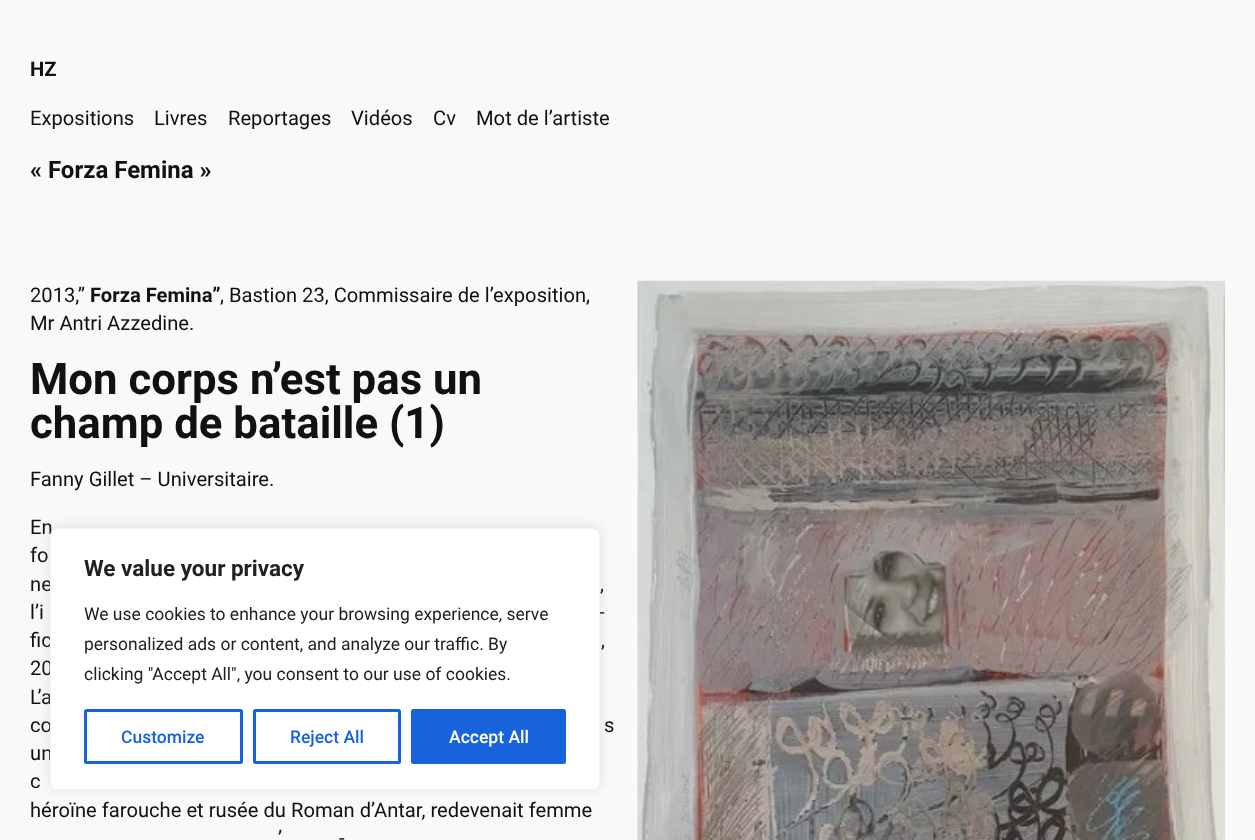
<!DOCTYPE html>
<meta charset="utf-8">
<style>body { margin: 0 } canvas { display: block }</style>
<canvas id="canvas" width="1255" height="840"></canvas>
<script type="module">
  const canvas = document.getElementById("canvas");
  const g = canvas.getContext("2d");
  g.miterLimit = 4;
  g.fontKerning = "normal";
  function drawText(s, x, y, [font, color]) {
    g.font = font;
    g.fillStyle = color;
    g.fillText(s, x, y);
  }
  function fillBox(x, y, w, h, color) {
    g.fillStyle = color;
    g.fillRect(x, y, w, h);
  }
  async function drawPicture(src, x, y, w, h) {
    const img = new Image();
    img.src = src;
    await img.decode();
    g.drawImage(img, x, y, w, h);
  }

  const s1 = ["bold 20.2px Roboto", "#111111"];
  const s2 = ["20.2px Roboto", "#111111"];
  const s3 = ["bold 24px Roboto", "#111111"];
  const s4 = ["bold 43.75px Roboto", "#111111"];
  const s5 = ["bold 22.5px Roboto", "#212121"];
  const s6 = ["17.5px Roboto", "#212121"];
  const s7 = ["500 17.5px Roboto", "#1863DC"];
  const s8 = ["500 17.5px Roboto", "#FFFFFF"];

  fillBox(0, 0, 1255, 840, "#F9F9F9");
  drawText("HZ", 30, 76, s1);
  drawText("Expositions", 30, 125, s2);
  drawText("Livres", 154, 125, s2);
  drawText("Reportages", 228, 125, s2);
  drawText("Vidéos", 351, 125, s2);
  drawText("Cv", 433, 125, s2);
  drawText("Mot de l’artiste", 476, 125, s2);
  drawText("« Forza Femina »", 30, 178, s3);
  drawText("2013,”", 30, 302, s2);
  drawText("Forza Femina”", 90, 302, s1);
  drawText(", Bastion 23, Commissaire de l’exposition,", 220, 302, s2);
  drawText("Mr Antri Azzedine.", 30, 330, s2);
  drawText("Mon corps n’est pas un", 30, 394, s4);
  drawText("champ de bataille (1)", 30, 438, s4);
  drawText("Fanny Gillet – Universitaire.", 30, 486, s2);
  drawText("En", 30, 534, s2);
  drawText("fo", 30, 562, s2);
  drawText("ne", 30, 591, s2);
  drawText(",", 600, 591, s2);
  drawText("l’i", 30, 619, s2);
  drawText("-", 599, 619, s2);
  drawText("fic", 30, 647, s2);
  drawText(",", 601, 647, s2);
  drawText("20", 30, 675, s2);
  drawText("L’a", 30, 704, s2);
  drawText("co", 30, 732, s2);
  drawText("s", 604, 732, s2);
  drawText("un", 30, 760, s2);
  drawText("c", 30, 788, s2);
  drawText("héroïne farouche et rusée du Roman d’Antar, redevenait femme", 30, 817, s2);
  drawText("’", 278, 845, s2);
  drawText("-", 339, 845, s2);
  await drawPicture("pic1.png", 637, 280, 588, 560);
  g.fillStyle = "rgba(172, 171, 171, 0.3)";
  g.filter = "blur(6px)";
  g.beginPath();
  g.roundRect(50, 526, 550, 263, 8);
  g.fill();
  g.filter = "none";
  g.fillStyle = "#FFFFFF";
  g.beginPath();
  g.roundRect(50.5, 528.5, 549, 261, 7.5);
  g.fill();
  g.strokeStyle = "#F4F4F4";
  g.stroke();
  drawText("We value your privacy", 84, 576, s5);
  drawText("We use cookies to enhance your browsing experience, serve", 84, 620, s6);
  drawText("personalized ads or content, and analyze our traffic. By", 84, 650, s6);
  drawText("clicking \"Accept All\", you consent to our use of cookies.", 84, 680, s6);
  g.beginPath();
  g.roundRect(85.5, 710.5, 156, 52, 1);
  g.strokeStyle = "#1863DC";
  g.lineWidth = 3;
  g.stroke();
  drawText("Customize", 121, 743, s7);
  g.beginPath();
  g.roundRect(254.5, 710.5, 145, 52, 1);
  g.stroke();
  drawText("Reject All", 290, 743, s7);
  g.beginPath();
  g.roundRect(412.5, 710.5, 152, 52, 1);
  g.fill();
  g.stroke();
  drawText("Accept All", 449, 743, s8);
</script>
